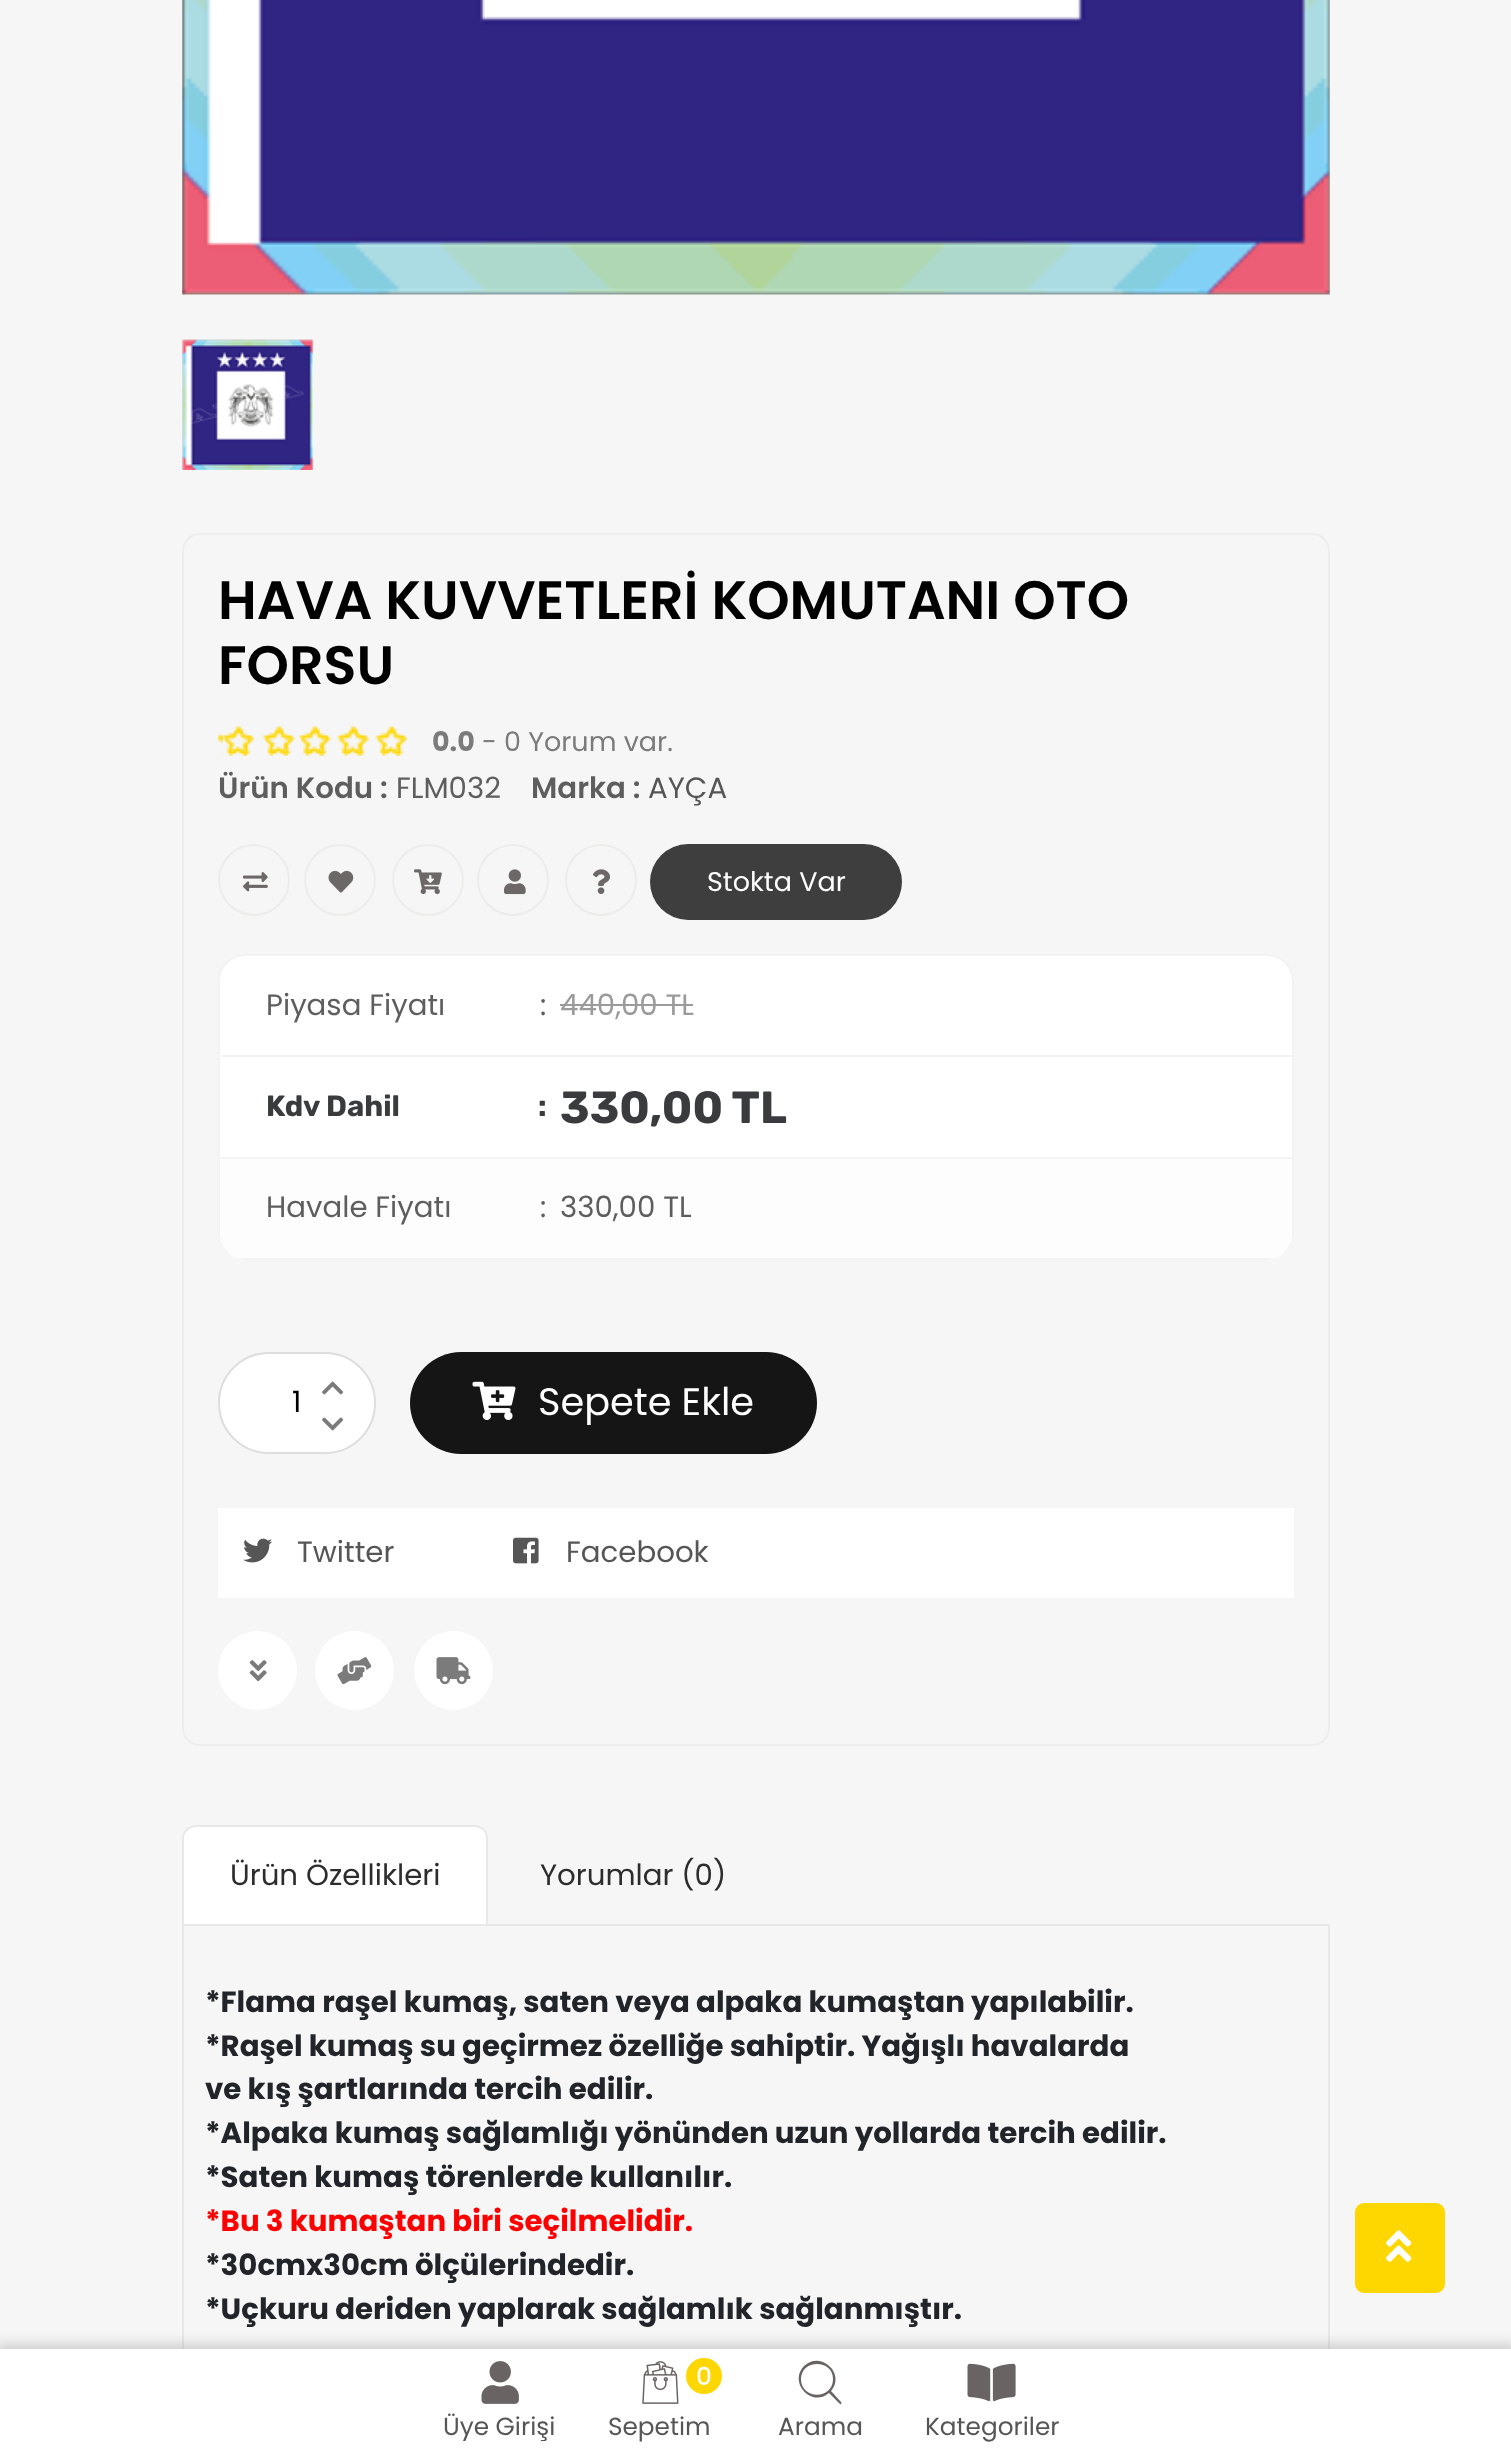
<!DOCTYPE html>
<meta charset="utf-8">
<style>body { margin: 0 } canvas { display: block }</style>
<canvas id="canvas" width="1511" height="2450"></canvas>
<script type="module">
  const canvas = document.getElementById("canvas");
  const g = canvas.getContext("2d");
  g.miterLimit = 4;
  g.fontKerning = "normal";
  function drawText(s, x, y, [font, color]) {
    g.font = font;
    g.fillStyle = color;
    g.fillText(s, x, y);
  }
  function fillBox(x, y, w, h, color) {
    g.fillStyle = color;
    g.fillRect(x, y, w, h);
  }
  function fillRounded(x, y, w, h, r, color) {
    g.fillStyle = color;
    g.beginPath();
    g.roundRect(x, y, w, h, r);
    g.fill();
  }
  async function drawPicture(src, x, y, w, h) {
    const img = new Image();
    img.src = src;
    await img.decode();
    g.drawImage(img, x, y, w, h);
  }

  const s1 = ["600 54px Poppins", "#000000"];
  const s2 = ["bold 27px Poppins", "#7B7B7B"];
  const s3 = ["27px Poppins", "#7B7B7B"];
  const s4 = ["600 29.25px Poppins", "#5F5E5E"];
  const s5 = ["29.25px Poppins", "#5F5E5E"];
  const s6 = ["29.25px Poppins", "#565657"];
  const s7 = ["27px Poppins", "#FFFFFF"];
  const s8 = ["29.25px Poppins", "#9B9B9B"];
  const s9 = ["bold 29.25px Rubik", "#3A3B3C"];
  const s10 = ["bold 45px Rubik", "#3A3B3C"];
  const s11 = ["29.25px Poppins", "#000000"];
  const s12 = ["38.25px Poppins", "#FFFFFF"];
  const s13 = ["29.25px Poppins", "#2D2D2D"];
  const s14 = ["bold 29.25px Poppins", "#212529"];
  const s15 = ["bold 29.25px Poppins", "#FF0000"];
  const s16 = ["24.75px Poppins", "#565657"];
  const s17 = ["500 24.75px Poppins", "#FFFFFF"];

  fillBox(0, 0, 1511, 2450, "#F6F6F6");
  await drawPicture("pic1.png", 182, 0, 1148, 295);
  await drawPicture("pic2.png", 182, 339, 131, 131);
  g.beginPath();
  g.roundRect(183, 534, 1146, 1211, 17);
  g.strokeStyle = "#EDEDED";
  g.lineWidth = 2;
  g.stroke();
  drawText("HAVA KUVVETLERİ KOMUTANI OTO", 218, 619, s1);
  drawText("FORSU", 218, 684, s1);
  await drawPicture("pic3.png", 222, 726, 186, 30);
  await drawPicture("pic4.png", 218, 733, 5, 23);
  drawText("0.0", 432, 751, s2);
  drawText("- 0 Yorum var.", 482, 751, s3);
  drawText("Ürün Kodu :", 218, 798, s4);
  drawText("FLM032", 396, 798, s5);
  drawText("Marka :", 531, 798, s4);
  drawText("AYÇA", 648, 798, s6);
  g.beginPath();
  g.arc(254, 880, 35, 0, Math.PI * 2);
  g.strokeStyle = "#EDECEA";
  g.stroke();
  await drawPicture("pic5.png", 243, 872, 25, 20);
  g.beginPath();
  g.arc(340, 880, 35, 0, Math.PI * 2);
  g.stroke();
  await drawPicture("pic6.png", 328, 870, 26, 23);
  g.beginPath();
  g.arc(428, 880, 35, 0, Math.PI * 2);
  g.stroke();
  await drawPicture("pic7.png", 414, 869, 28, 26);
  g.beginPath();
  g.arc(513, 880, 35, 0, Math.PI * 2);
  g.stroke();
  await drawPicture("pic8.png", 504, 869, 22, 26);
  g.beginPath();
  g.arc(601, 880, 35, 0, Math.PI * 2);
  g.stroke();
  await drawPicture("pic9.png", 593, 869, 17, 25);
  fillRounded(650, 844, 252, 76, 38, "#3E3E3E");
  drawText("Stokta Var", 707, 891, s7);
  fillRounded(218, 954, 1076, 306, 27, "#FFFFFF");
  g.fillStyle = "#F3F3F3";
  g.beginPath();
  g.moveTo(245, 954);
  g.lineTo(1267, 954);
  g.bezierCurveTo(1282, 954, 1294, 966, 1294, 981);
  g.lineTo(1294, 1233);
  g.bezierCurveTo(1294, 1248, 1282, 1260, 1267, 1260);
  g.lineTo(245, 1260);
  g.bezierCurveTo(230, 1260, 218, 1248, 218, 1233);
  g.lineTo(218, 981);
  g.bezierCurveTo(218, 966, 230, 954, 245, 954);
  g.closePath();
  g.moveTo(245, 956);
  g.lineTo(1267, 956);
  g.bezierCurveTo(1280, 956, 1292, 967, 1292, 981);
  g.lineTo(1292, 1233);
  g.bezierCurveTo(1292, 1248, 1280, 1260, 1267, 1260);
  g.lineTo(245, 1260);
  g.bezierCurveTo(232, 1260, 220, 1248, 220, 1233);
  g.lineTo(220, 981);
  g.bezierCurveTo(220, 967, 232, 956, 245, 956);
  g.closePath();
  g.fill("evenodd");
  fillBox(221, 1055, 1071, 2, "#F3F3F3");
  drawText("Piyasa Fiyatı", 266, 1015, s5);
  drawText(":", 540, 1015, s5);
  drawText("440,00 TL", 560, 1015, s8);
  fillBox(560, 1004, 133, 2, "#9B9B9B");
  fillBox(221, 1157, 1071, 2, "#F3F3F3");
  drawText("Kdv Dahil", 266, 1116, s9);
  drawText(":", 538, 1116, s9);
  drawText("330,00 TL", 560, 1123, s10);
  g.fillStyle = "#FDFDFD";
  g.beginPath();
  g.moveTo(221, 1159);
  g.lineTo(221, 1238);
  g.bezierCurveTo(223, 1251, 233, 1260, 245, 1260);
  g.lineTo(1267, 1260);
  g.bezierCurveTo(1280, 1260, 1292, 1248, 1292, 1233);
  g.lineTo(1292, 1159);
  g.closePath();
  g.fill();
  g.fillStyle = "#F3F3F3";
  g.beginPath();
  g.moveTo(245, 1260);
  g.lineTo(1267, 1260);
  g.bezierCurveTo(1270, 1260, 1273, 1259, 1276, 1258);
  g.lineTo(236, 1258);
  g.bezierCurveTo(239, 1259, 242, 1260, 245, 1260);
  g.closePath();
  g.fill();
  drawText("Havale Fiyatı", 266, 1217, s5);
  drawText(":", 540, 1217, s5);
  drawText("330,00 TL", 560, 1217, s5);
  g.fillStyle = "#FFFFFF";
  g.beginPath();
  g.roundRect(219, 1353, 156, 100, 50);
  g.fill();
  g.strokeStyle = "#DDDDDD";
  g.stroke();
  drawText("1", 292, 1412, s11);
  await drawPicture("pic10.png", 322, 1381, 22, 14);
  await drawPicture("pic11.png", 322, 1417, 22, 14);
  fillRounded(410, 1352, 407, 102, 51, "#151515");
  await drawPicture("pic12.png", 472, 1381, 44, 39);
  drawText("Sepete Ekle", 538, 1415, s12);
  fillBox(218, 1508, 1076, 90, "#FFFFFF");
  await drawPicture("pic13.png", 243, 1538, 30, 25);
  drawText("Twitter", 297, 1562, s6);
  await drawPicture("pic14.png", 513, 1537, 26, 27);
  drawText("Facebook", 566, 1562, s6);
  g.fillStyle = "#FFFFFF";
  g.beginPath();
  g.arc(257.5, 1670.5, 39.5, 0, Math.PI * 2);
  g.fill();
  await drawPicture("pic15.png", 249, 1660, 18, 22);
  g.beginPath();
  g.arc(354.5, 1670.5, 39.5, 0, Math.PI * 2);
  g.fill();
  await drawPicture("pic16.png", 337, 1657, 35, 28);
  g.beginPath();
  g.arc(453.5, 1670.5, 39.5, 0, Math.PI * 2);
  g.fill();
  await drawPicture("pic17.png", 436, 1657, 35, 28);
  g.beginPath();
  g.roundRect(182, 1825, 306, 99, [14, 14, 0, 0]);
  g.fill();
  g.fillStyle = "#E8E8E8";
  g.beginPath();
  g.moveTo(196, 1825);
  g.lineTo(475, 1825);
  g.bezierCurveTo(482, 1825, 488, 1831, 488, 1838);
  g.lineTo(488, 1924);
  g.lineTo(182, 1924);
  g.lineTo(182, 1838);
  g.bezierCurveTo(182, 1831, 188, 1825, 196, 1825);
  g.closePath();
  g.moveTo(196, 1827);
  g.lineTo(475, 1827);
  g.bezierCurveTo(481, 1827, 486, 1832, 486, 1838);
  g.lineTo(486, 1924);
  g.lineTo(184, 1924);
  g.lineTo(184, 1838);
  g.bezierCurveTo(184, 1832, 190, 1827, 196, 1827);
  g.closePath();
  g.fill("evenodd");
  drawText("Ürün Özellikleri", 230, 1885, s13);
  drawText("Yorumlar (0)", 540, 1885, s13);
  g.strokeStyle = "#E8E8E8";
  g.strokeRect(183, 1925, 1146, 524);
  drawText("*Flama raşel kumaş, saten veya alpaka kumaştan yapılabilir.", 205, 2012, s14);
  drawText("*Raşel kumaş su geçirmez özelliğe sahiptir. Yağışlı havalarda", 205, 2056, s14);
  drawText("ve kış şartlarında tercih edilir.", 205, 2099, s14);
  drawText("*Alpaka kumaş sağlamlığı yönünden uzun yollarda tercih edilir.", 205, 2143, s14);
  drawText("*Saten kumaş törenlerde kullanılır.", 205, 2187, s14);
  drawText("*Bu 3 kumaştan biri seçilmelidir.", 205, 2231, s15);
  drawText("*30cmx30cm ölçülerindedir.", 205, 2275, s14);
  drawText("*Uçkuru deriden yaplarak sağlamlık sağlanmıştır.", 205, 2319, s14);
  fillRounded(1355, 2203, 90, 90, 9, "#FED700");
  await drawPicture("pic18.png", 1386, 2230, 26, 32);
  g.fillStyle = "rgba(0, 0, 0, 0.18)";
  g.filter = "blur(7px)";
  g.beginPath();
  g.rect(-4, 2345, 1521, 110);
  g.fill();
  g.filter = "none";
  fillBox(0, 2349, 1511, 101, "#FFFFFF");
  await drawPicture("pic19.png", 481, 2361, 38, 43);
  g.save();
  g.beginPath();
  g.rect(425, 2410, 149, 31);
  g.clip();
  drawText("Üye Girişi", 443, 2435, s16);
  g.restore();
  await drawPicture("pic20.png", 642, 2361, 37, 43);
  g.fillStyle = "#FED700";
  g.beginPath();
  g.arc(704, 2376, 18, 0, Math.PI * 2);
  g.fill();
  drawText("0", 696, 2385, s17);
  drawText("Sepetim", 608, 2435, s16);
  g.fillStyle = "#696363";
  g.beginPath();
  g.moveTo(841, 2402);
  g.bezierCurveTo(842, 2403, 841, 2405, 840, 2404);
  g.lineTo(829, 2393);
  g.bezierCurveTo(812, 2408, 788, 2383, 804, 2366);
  g.bezierCurveTo(821, 2350, 846, 2374, 831, 2391);
  g.closePath();
  g.moveTo(801, 2379);
  g.bezierCurveTo(801, 2400, 833, 2400, 833, 2379);
  g.bezierCurveTo(833, 2359, 801, 2359, 801, 2379);
  g.closePath();
  g.fill();
  drawText("Arama", 778, 2435, s16);
  await drawPicture("pic21.png", 967, 2363, 49, 39);
  drawText("Kategoriler", 925, 2435, s16);
</script>
